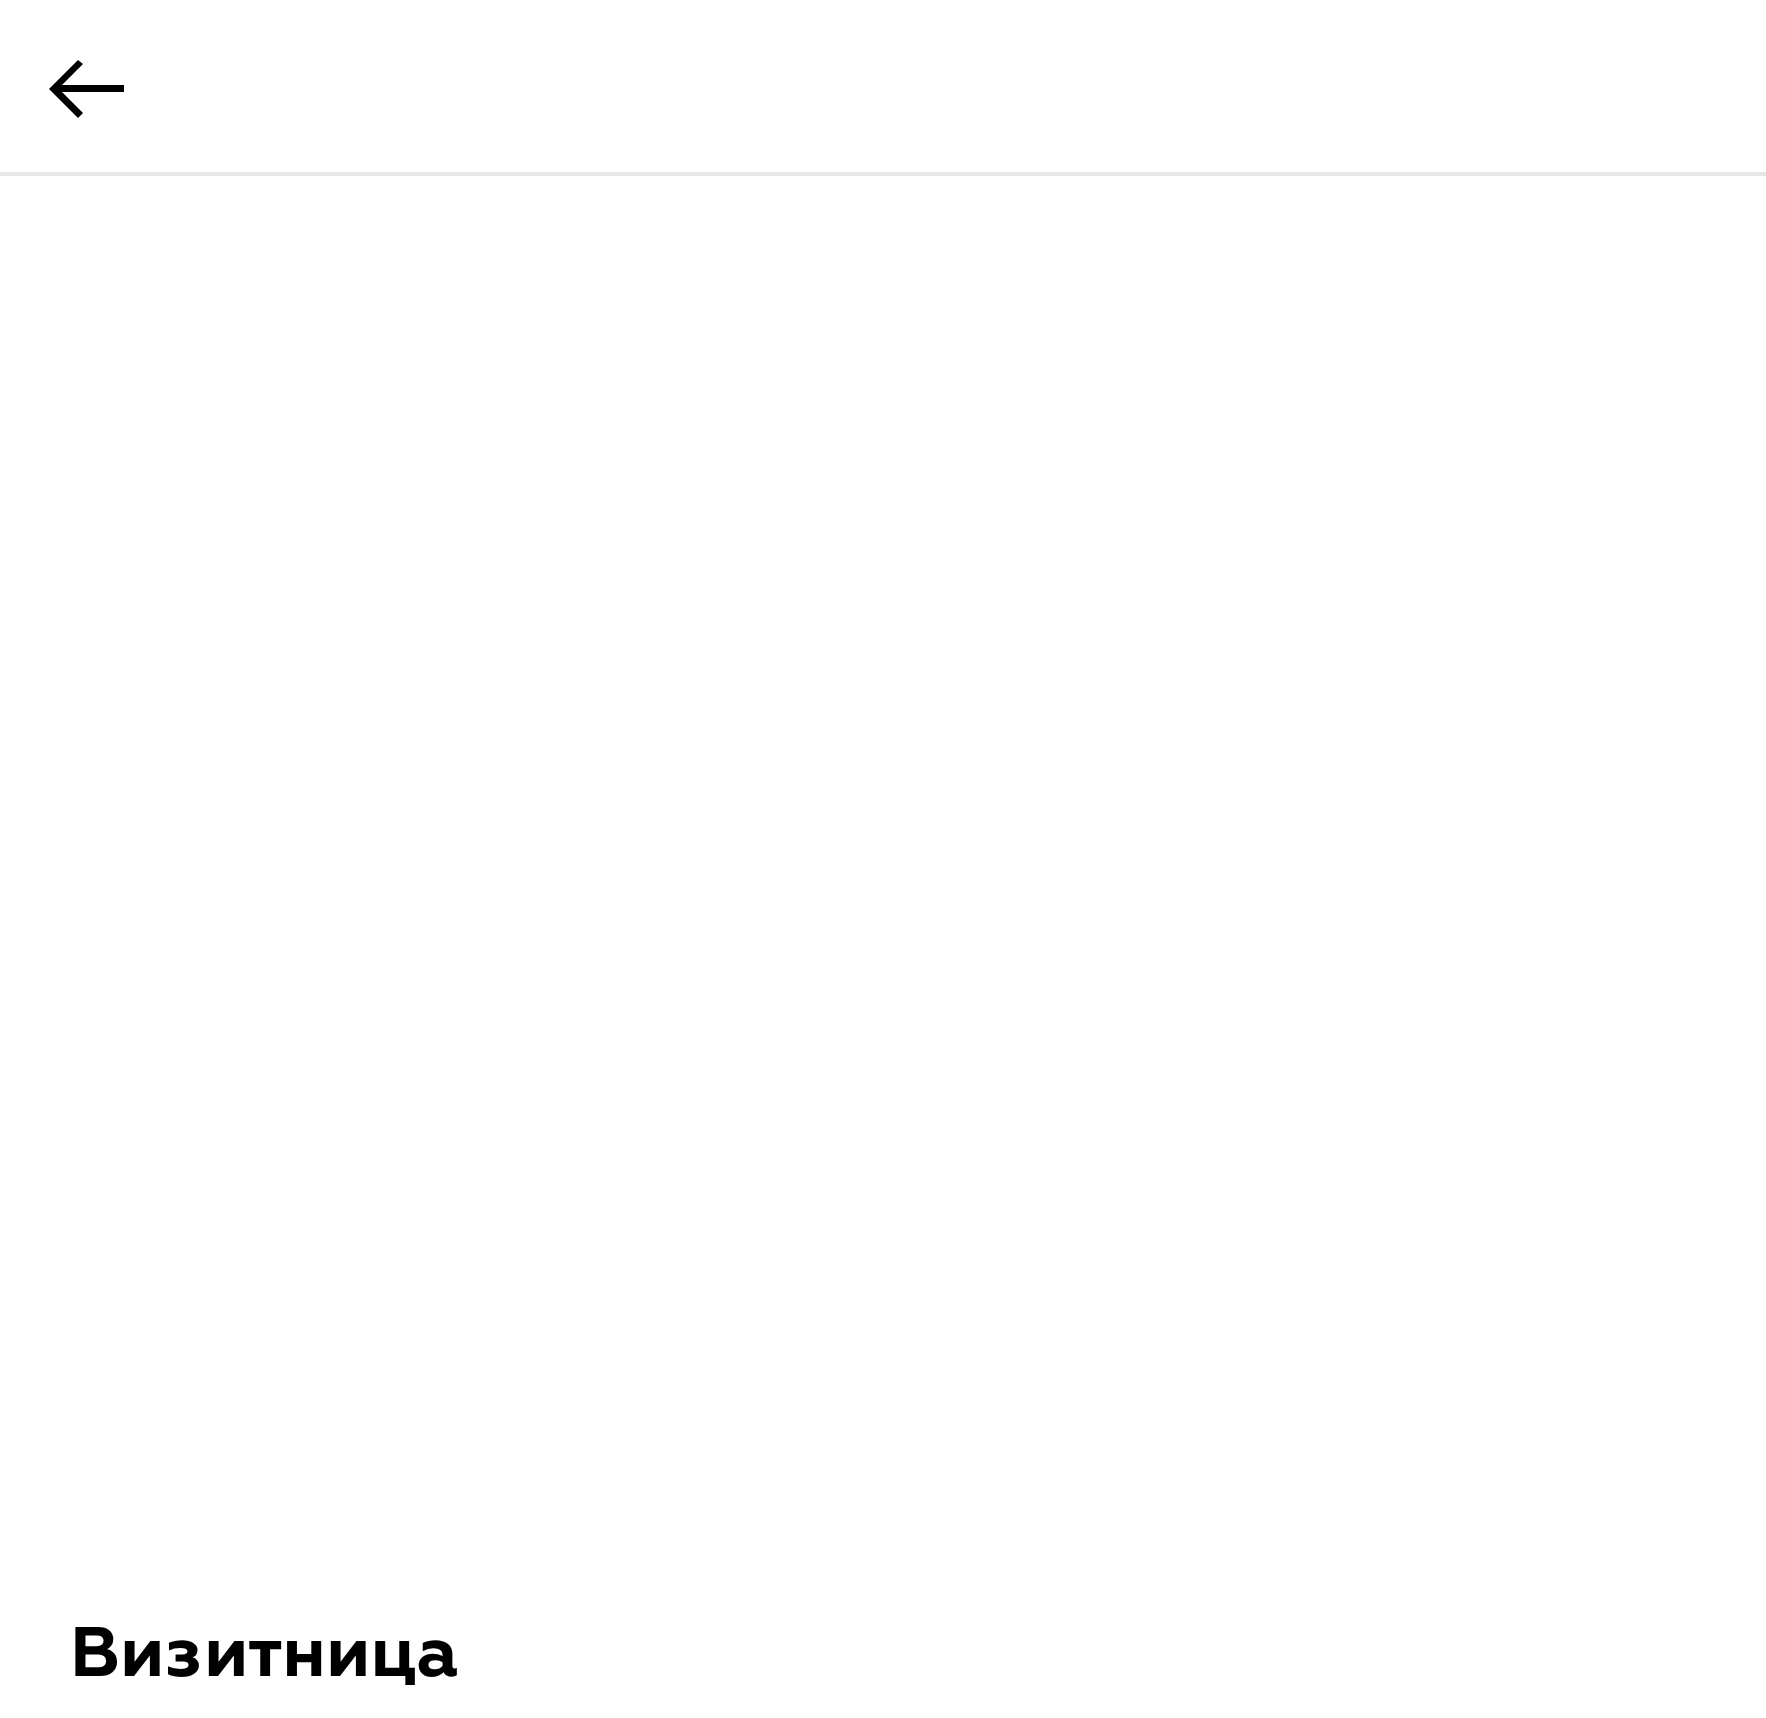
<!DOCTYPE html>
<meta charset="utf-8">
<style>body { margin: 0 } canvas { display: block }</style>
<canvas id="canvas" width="1766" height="1718"></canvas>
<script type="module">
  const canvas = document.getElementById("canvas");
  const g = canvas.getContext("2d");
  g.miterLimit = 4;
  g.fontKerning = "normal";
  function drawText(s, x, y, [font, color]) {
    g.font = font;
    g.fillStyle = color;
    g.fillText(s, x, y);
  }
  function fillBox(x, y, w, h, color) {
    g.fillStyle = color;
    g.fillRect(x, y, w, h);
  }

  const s1 = ["bold 70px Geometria", "#000000"];

  fillBox(0, 0, 1766, 1718, "#FFFFFF");
  fillBox(0, 172, 1766, 4, "#E6E6E6");
  g.fillStyle = "#000000";
  g.beginPath();
  g.moveTo(78, 60);
  g.lineTo(83, 64);
  g.lineTo(62, 85);
  g.lineTo(124, 85);
  g.lineTo(124, 92);
  g.lineTo(62, 92);
  g.lineTo(83, 113);
  g.lineTo(78, 118);
  g.lineTo(49, 89);
  g.closePath();
  g.fill();
  drawText("Визитница", 70, 1676, s1);
</script>
